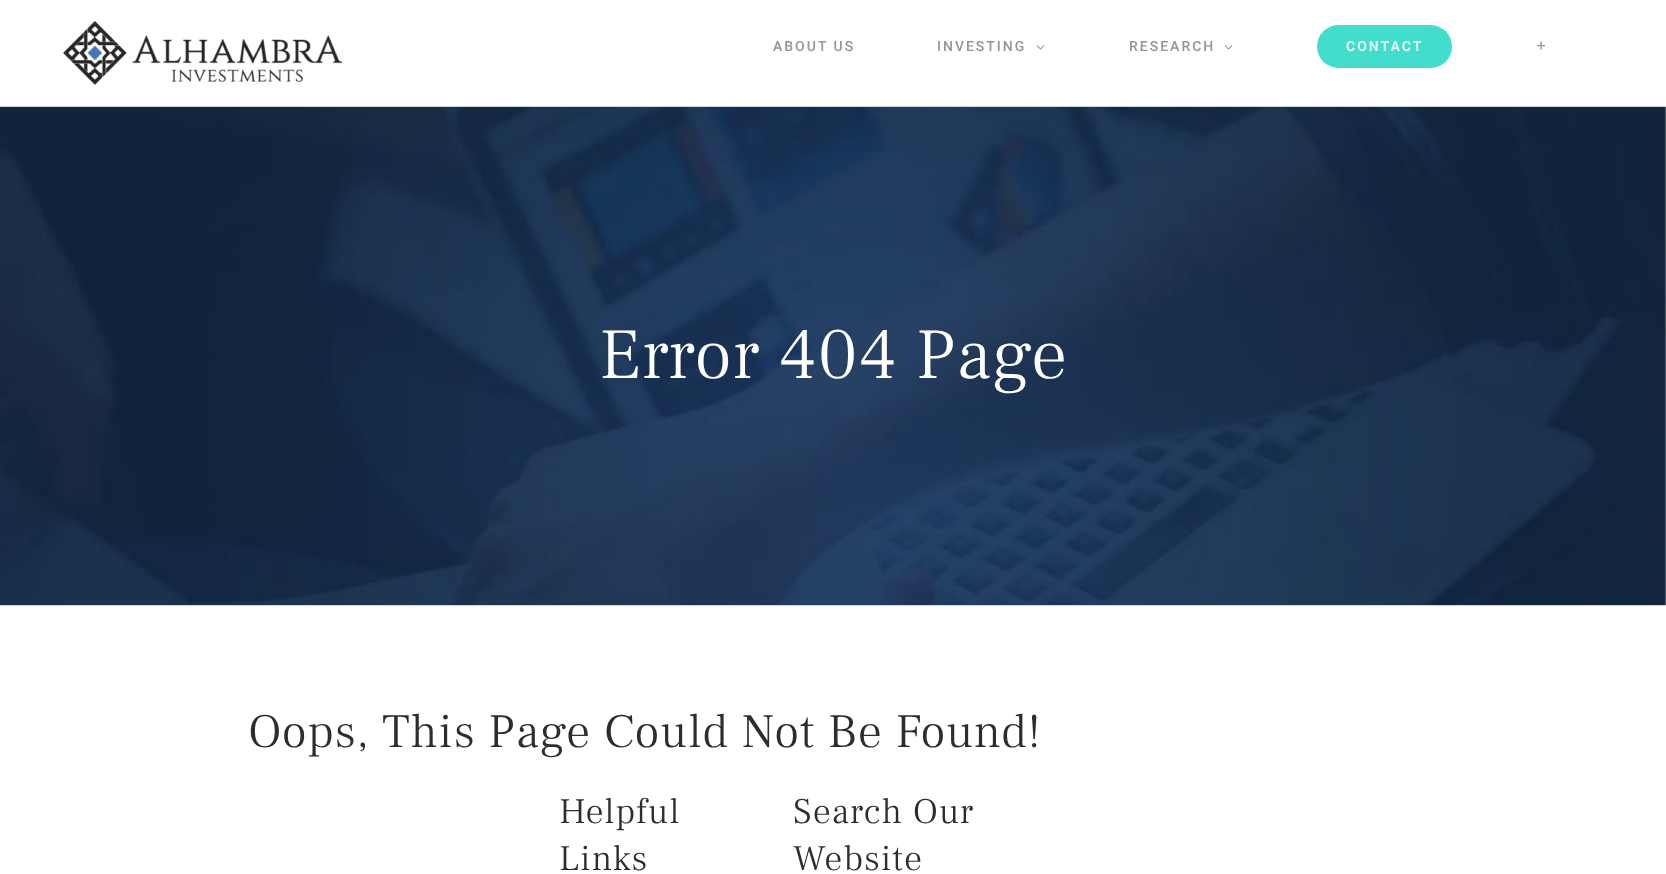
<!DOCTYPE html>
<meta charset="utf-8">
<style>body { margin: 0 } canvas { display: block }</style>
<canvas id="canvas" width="1666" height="874"></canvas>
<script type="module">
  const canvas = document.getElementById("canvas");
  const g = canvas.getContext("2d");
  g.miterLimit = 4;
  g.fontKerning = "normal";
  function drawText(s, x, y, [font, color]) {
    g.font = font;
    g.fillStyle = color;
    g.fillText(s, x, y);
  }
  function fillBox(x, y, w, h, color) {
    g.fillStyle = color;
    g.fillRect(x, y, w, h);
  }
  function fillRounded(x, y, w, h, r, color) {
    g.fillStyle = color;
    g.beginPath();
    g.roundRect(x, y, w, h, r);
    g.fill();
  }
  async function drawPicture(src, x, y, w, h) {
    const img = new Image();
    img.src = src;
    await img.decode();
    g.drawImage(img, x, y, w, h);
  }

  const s1 = ["500 14px Roboto", "#969595"];
  const s2 = ["bold 14px Roboto", "#DFF9F7"];
  const s3 = ["300 72px Frank Ruhl Libre", "#FFFFFF"];
  const s4 = ["300 48px Frank Ruhl Libre", "#2D2D2D"];
  const s5 = ["300 36px Frank Ruhl Libre", "#2D2D2D"];

  fillBox(0, 0, 1666, 874, "#FFFFFF");
  await drawPicture("pic1.png", 63, 21, 279, 64);
  g.letterSpacing = "2px";
  drawText("ABOUT US", 773, 51, s1);
  drawText("INVESTING", 937, 51, s1);
  await drawPicture("pic2.png", 1036, 45, 9, 5);
  drawText("RESEARCH", 1129, 51, s1);
  await drawPicture("pic2.png", 1224, 45, 9, 5);
  fillRounded(1317, 25, 135, 43, 21.5, "#43DDCD");
  drawText("CONTACT", 1346, 51, s2);
  await drawPicture("pic3.png", 1537, 41, 8, 9);
  await drawPicture("pic4.png", 0, 107, 1666, 498);
  fillBox(0, 106, 1666, 1, "#D2D3D4");
  fillBox(0, 605, 1666, 1, "#D2D3D4");
  g.letterSpacing = "1px";
  drawText("Error 404 Page", 599, 378, s3);
  drawText("Oops, This Page Could Not Be Found!", 248, 747, s4);
  drawText("Helpful", 559, 823, s5);
  drawText("Links", 559, 870, s5);
  drawText("Search Our", 793, 823, s5);
  drawText("Website", 793, 870, s5);
</script>
